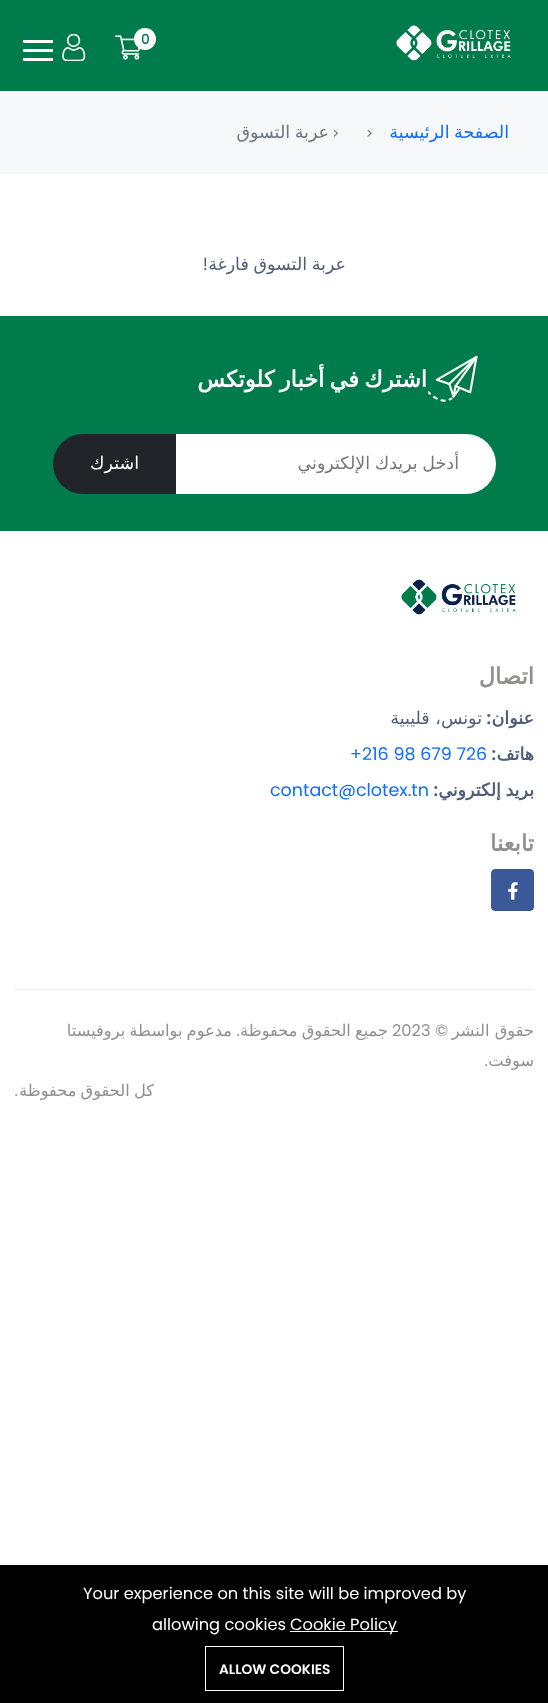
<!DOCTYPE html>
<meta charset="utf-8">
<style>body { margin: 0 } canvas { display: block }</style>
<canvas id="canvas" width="548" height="1703"></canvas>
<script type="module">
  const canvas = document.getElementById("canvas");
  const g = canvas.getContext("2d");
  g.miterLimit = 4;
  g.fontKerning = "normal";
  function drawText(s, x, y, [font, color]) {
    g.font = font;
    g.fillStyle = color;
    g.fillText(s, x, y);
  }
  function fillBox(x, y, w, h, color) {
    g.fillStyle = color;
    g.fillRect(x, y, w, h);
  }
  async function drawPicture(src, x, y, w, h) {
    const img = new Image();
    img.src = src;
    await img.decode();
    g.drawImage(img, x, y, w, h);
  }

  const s1 = ["500 13.75px Poppins", "#007B4B"];
  const s2 = ["17.5px DejaVu Sans", "#0D6EFD"];
  const s3 = ["17.5px DejaVu Sans", "#6C757D"];
  const s4 = ["17.5px DejaVu Sans", "#4F5D77"];
  const s5 = ["17.5px Poppins", "#4F5D77"];
  const s6 = ["bold 22.5px DejaVu Sans", "#FFFFFF"];
  const s7 = ["17.5px DejaVu Sans", "#777777"];
  const s8 = ["17.5px DejaVu Sans", "#FFFFFF"];
  const s9 = ["bold 22.5px DejaVu Sans", "#90908E"];
  const s10 = ["bold 17.5px DejaVu Sans", "#4F5D77"];
  const s11 = ["600 17.5px Poppins", "#4F5D77"];
  const s12 = ["17.5px Poppins", "#0D6EFD"];
  const s13 = ["16.25px DejaVu Sans", "#90908E"];
  const s14 = ["16.25px Poppins", "#90908E"];
  const s15 = ["16.25px Poppins", "#FFFFFF"];
  const s16 = ["600 13.75px Poppins", "#FFFFFF"];

  fillBox(0, 0, 548, 1703, "#FFFFFF");
  fillBox(0, 0, 548, 91, "#007B4B");
  await drawPicture("pic1.png", 396, 25, 115, 36);
  await drawPicture("pic2.png", 115, 35, 25, 25);
  g.fillStyle = "#FFFFFF";
  g.beginPath();
  g.arc(145, 39, 11, 0, Math.PI * 2);
  g.fill();
  drawText("0", 141, 44, s1);
  await drawPicture("pic3.png", 62, 34, 24, 27);
  fillBox(23, 40, 30, 3, "#FFFFFF");
  fillBox(23, 49, 30, 3, "#FFFFFF");
  fillBox(23, 58, 30, 3, "#FFFFFF");
  fillBox(0, 91, 548, 83, "#F7F8F9");
  g.wordSpacing = "-1px";
  g.direction = "rtl";
  drawText("الصفحة الرئيسية", 509, 138, s2);
  await drawPicture("pic4.png", 367, 129, 5, 8);
  await drawPicture("pic5.png", 333, 129, 5, 8);
  drawText("عربة التسوق", 329, 138, s3);
  drawText("عربة التسوق فارغة", 346, 270, s4);
  g.wordSpacing = "0px";
  drawText("!", 208, 270, s5);
  fillBox(0, 316, 548, 215, "#007B4B");
  await drawPicture("pic6.png", 428, 355, 50, 47);
  g.wordSpacing = "-2px";
  drawText("اشترك في أخبار كلوتكس", 427, 387, s6);
  g.beginPath();
  g.roundRect(176, 434, 320, 60, [0, 30, 30, 0]);
  g.fill();
  g.save();
  g.beginPath();
  g.rect(201, 451, 258, 27);
  g.clip();
  g.wordSpacing = "-1px";
  drawText("أدخل بريدك الإلكتروني", 459, 469, s7);
  g.restore();
  g.fillStyle = "#212529";
  g.beginPath();
  g.roundRect(53, 434, 123, 60, [30, 0, 0, 30]);
  g.fill();
  g.wordSpacing = "0px";
  drawText("اشترك", 139, 469, s8);
  await drawPicture("pic7.png", 401, 579, 115, 36);
  drawText("اتصال", 534, 684, s9);
  drawText("عنوان", 534, 724, s10);
  drawText(":", 491, 724, s11);
  drawText("تونس، قليبية", 482, 724, s4);
  drawText("هاتف", 534, 760, s10);
  drawText(":", 496, 760, s11);
  g.direction = "ltr";
  drawText("+216 98 679 726", 350, 760, s12);
  g.wordSpacing = "-1px";
  g.direction = "rtl";
  drawText("بريد إلكتروني", 534, 796, s10);
  g.wordSpacing = "0px";
  drawText(":", 438, 796, s11);
  g.direction = "ltr";
  drawText("contact@clotex.tn", 270, 796, s12);
  g.direction = "rtl";
  drawText("تابعنا", 534, 851, s9);
  g.fillStyle = "#3B5999";
  g.beginPath();
  g.roundRect(491.5, 869.5, 42, 41, 3.5);
  g.fill();
  g.strokeStyle = "#3B5999";
  g.stroke();
  await drawPicture("pic8.png", 508, 882, 10, 18);
  fillBox(15, 989, 519, 1, "#EEEEEE");
  drawText("حقوق النشر", 534, 1036, s13);
  drawText("©", 448, 1036, s14);
  g.direction = "ltr";
  drawText("2023", 392, 1036, s14);
  g.wordSpacing = "-1px";
  g.direction = "rtl";
  drawText("جميع الحقوق محفوظة", 388, 1036, s13);
  g.wordSpacing = "0px";
  drawText(".", 240, 1036, s14);
  g.wordSpacing = "-1px";
  drawText("مدعوم بواسطة بروفيستا", 232, 1036, s13);
  g.wordSpacing = "0px";
  drawText("سوفت", 534, 1066, s13);
  drawText(".", 488, 1066, s14);
  g.wordSpacing = "-1px";
  drawText("كل الحقوق محفوظة", 154, 1096, s13);
  g.wordSpacing = "0px";
  drawText(".", 18, 1096, s14);
  fillBox(0, 1565, 548, 138, "#000000");
  g.direction = "ltr";
  drawText("Your experience on this site will be improved by", 83, 1599, s15);
  fillBox(290, 1631, 108, 1, "#FFFFFF");
  drawText("Cookie Policy", 290, 1630, s15);
  drawText("allowing cookies", 152, 1630, s15);
  g.strokeStyle = "#FFFFFF";
  g.strokeRect(205.5, 1646.5, 138, 44);
  drawText("ALLOW COOKIES", 219, 1674, s16);
</script>
